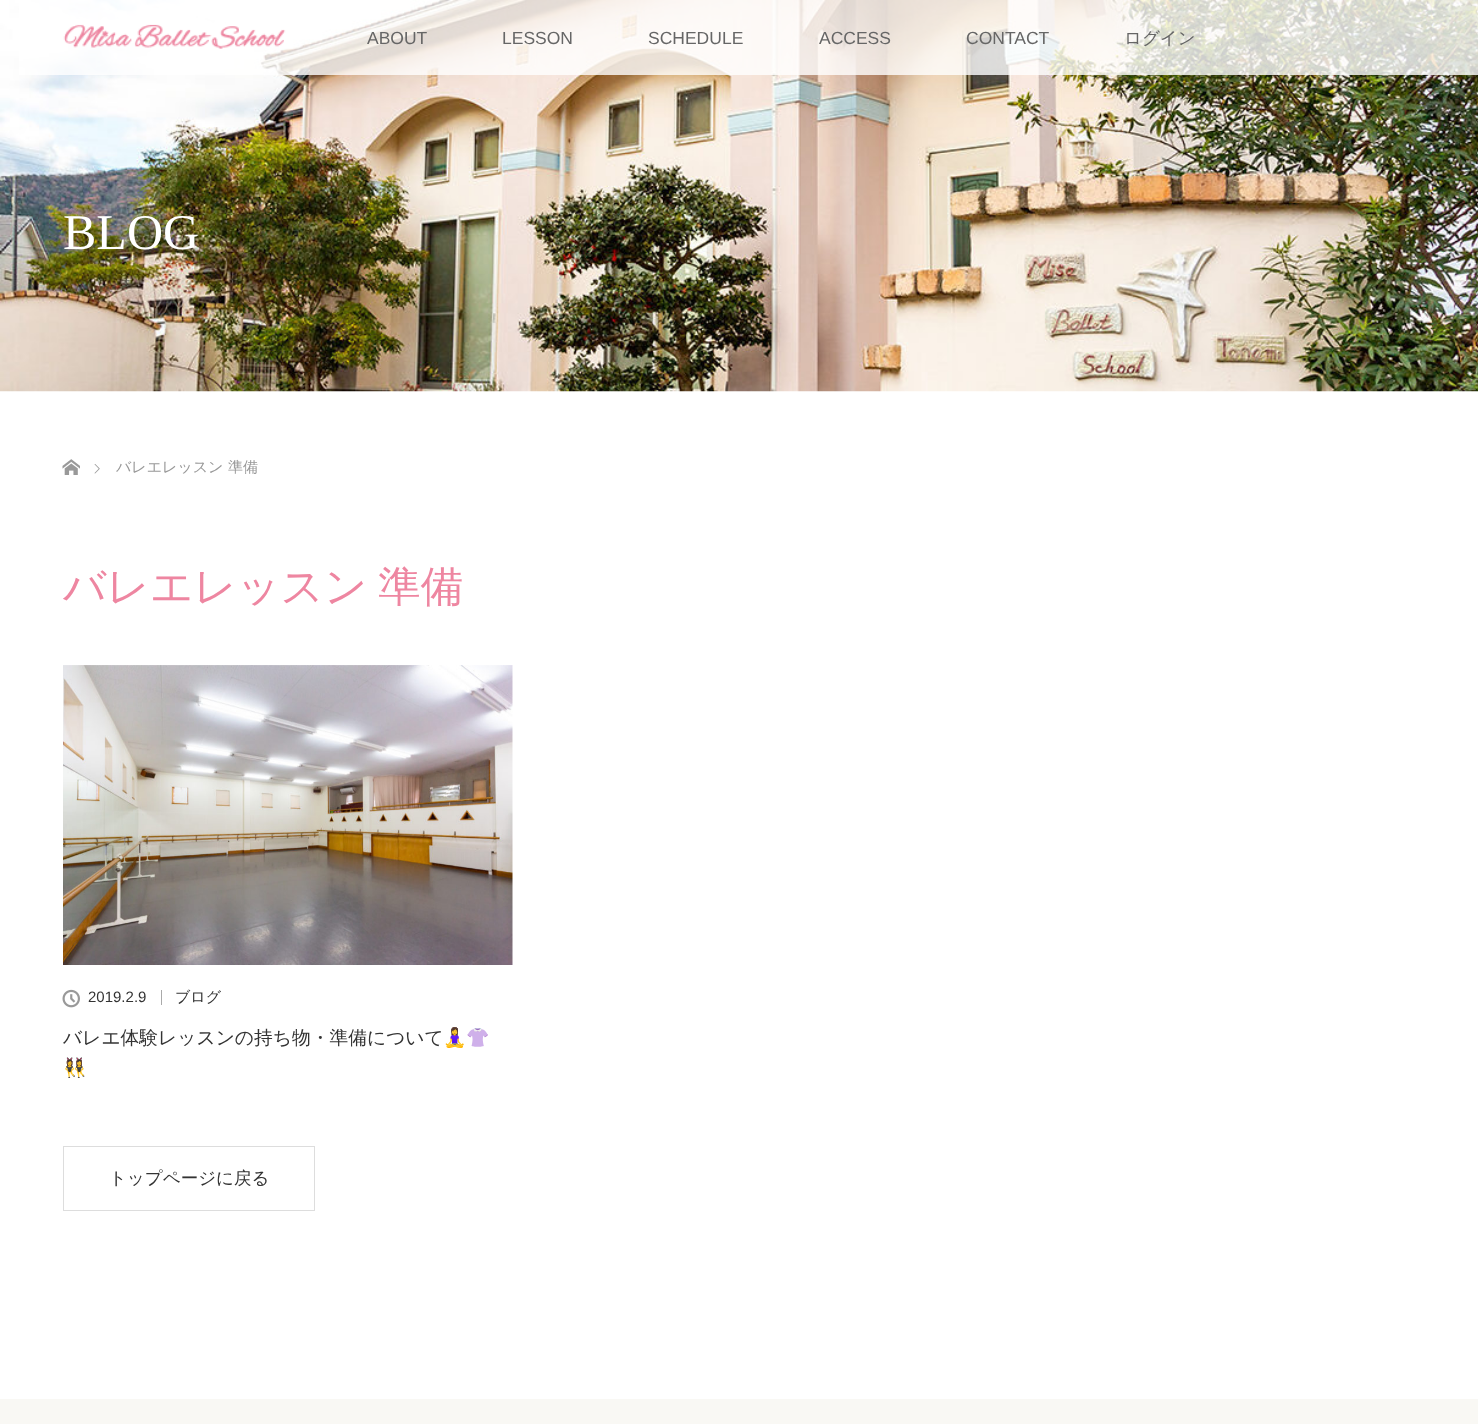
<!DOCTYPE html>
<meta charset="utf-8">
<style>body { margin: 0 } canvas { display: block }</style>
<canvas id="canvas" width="1478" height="1424"></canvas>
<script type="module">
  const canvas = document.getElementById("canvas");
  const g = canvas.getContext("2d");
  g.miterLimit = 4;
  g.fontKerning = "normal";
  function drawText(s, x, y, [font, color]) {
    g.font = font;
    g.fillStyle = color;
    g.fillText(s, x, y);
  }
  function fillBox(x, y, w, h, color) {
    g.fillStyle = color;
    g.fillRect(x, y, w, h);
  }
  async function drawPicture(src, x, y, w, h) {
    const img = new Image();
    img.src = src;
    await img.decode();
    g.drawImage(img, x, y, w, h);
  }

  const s1 = ["17.5px Liberation Sans", "#666666"];
  const s2 = ["500 17.5px WenQuanYi Zen Hei", "#666666"];
  const s3 = ["50px Liberation Serif", "#FFFFFF"];
  const s4 = ["500 15px WenQuanYi Zen Hei", "#999999"];
  const s5 = ["500 42.5px WenQuanYi Zen Hei", "#EE86A1"];
  const s6 = ["15px Liberation Sans", "#333333"];
  const s7 = ["500 15px WenQuanYi Zen Hei", "#333333"];
  const s8 = ["500 18.75px WenQuanYi Zen Hei", "#333333"];
  const s9 = ["18.75px Noto Color Emoji", "#333333"];
  const s10 = ["500 17.5px WenQuanYi Zen Hei", "#333333"];

  fillBox(0, 0, 1478, 1424, "#FFFFFF");
  await drawPicture("pic2.png", 0, 0, 1478, 392);
  fillBox(19, 0, 1459, 75, "rgba(255, 255, 255, 0.8)");
  await drawPicture("pic1.png", 63, 24, 223, 25);
  drawText("ABOUT", 367, 44, s1);
  drawText("LESSON", 502, 44, s1);
  drawText("SCHEDULE", 648, 44, s1);
  drawText("ACCESS", 819, 44, s1);
  drawText("CONTACT", 966, 44, s1);
  drawText("ログイン", 1124, 44, s2);
  drawText("BLOG", 63, 249, s3);
  await drawPicture("pic3.png", 62, 459, 18, 16);
  await drawPicture("pic4.png", 94, 464, 6, 10);
  drawText("バレエレッスン 準備", 116, 472, s4);
  g.wordSpacing = "-2px";
  drawText("バレエレッスン 準備", 63, 601, s5);
  await drawPicture("pic5.png", 63, 665, 450, 300);
  await drawPicture("pic6.png", 62, 989, 18, 19);
  g.wordSpacing = "0px";
  drawText("2019.2.9", 88, 1002, s6);
  fillBox(161, 990, 1, 15, "#AAAAAA");
  drawText("ブログ", 175, 1002, s7);
  drawText("バレエ体験レッスンの持ち物・準備について", 63, 1044, s8);
  drawText("🧘‍♀️👚", 443, 1044, s9);
  drawText("👯‍♀️", 63, 1074, s9);
  g.strokeStyle = "#DDDDDD";
  g.strokeRect(63.5, 1146.5, 251, 64);
  drawText("トップページに戻る", 109, 1184, s10);
  fillBox(0, 1399, 1478, 25, "#F9F8F4");
</script>
